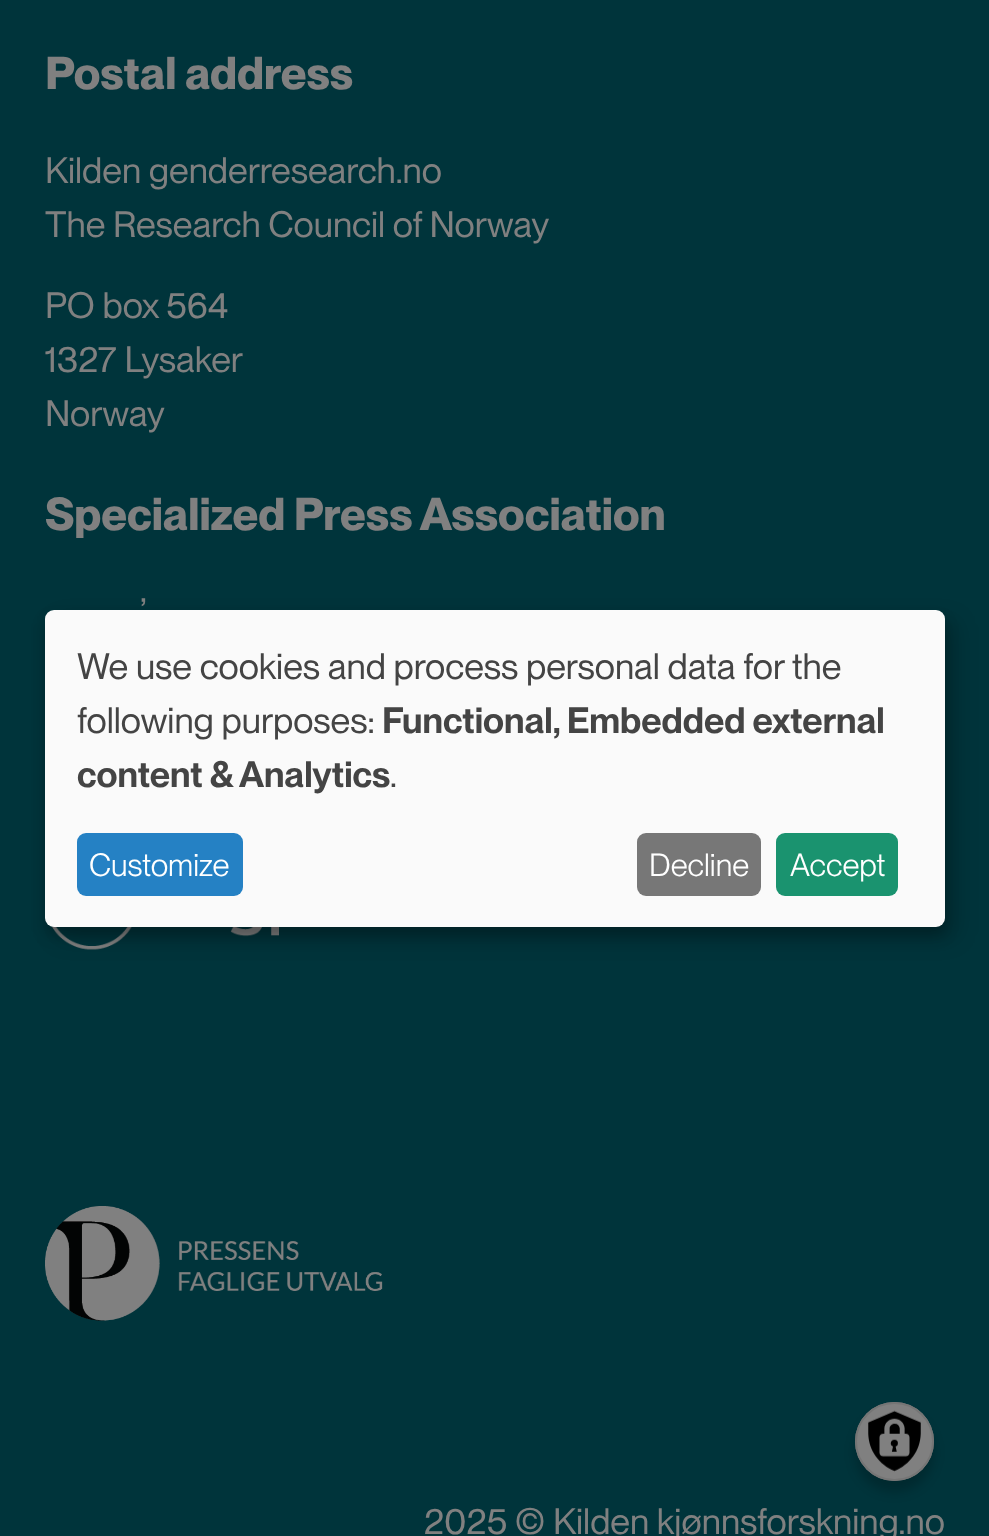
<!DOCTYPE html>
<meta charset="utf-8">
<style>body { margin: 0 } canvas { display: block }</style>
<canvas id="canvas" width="989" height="1536"></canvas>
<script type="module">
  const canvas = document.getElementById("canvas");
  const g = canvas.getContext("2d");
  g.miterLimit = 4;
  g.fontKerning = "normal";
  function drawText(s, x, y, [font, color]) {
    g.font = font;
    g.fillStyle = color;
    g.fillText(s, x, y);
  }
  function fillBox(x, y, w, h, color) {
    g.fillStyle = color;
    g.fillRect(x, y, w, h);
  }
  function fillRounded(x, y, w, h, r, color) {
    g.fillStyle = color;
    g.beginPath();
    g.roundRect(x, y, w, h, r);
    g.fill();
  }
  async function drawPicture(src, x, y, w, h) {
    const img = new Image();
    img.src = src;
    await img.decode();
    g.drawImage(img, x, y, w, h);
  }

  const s1 = ["bold 45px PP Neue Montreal", "#808080"];
  const s2 = ["36px PP Neue Montreal", "#808080"];
  const s3 = ["36px PP Neue Montreal", "#444444"];
  const s4 = ["600 36px PP Neue Montreal", "#444444"];
  const s5 = ["31.5px 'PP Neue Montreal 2'", "#FFFFFF"];

  fillBox(0, 0, 989, 1536, "#00343B");
  drawText("Postal address", 45, 89, s1);
  drawText("Kilden genderresearch.no", 45, 183, s2);
  drawText("The Research Council of Norway", 45, 237, s2);
  drawText("PO box 564", 45, 318, s2);
  drawText("1327 Lysaker", 45, 372, s2);
  drawText("Norway", 45, 426, s2);
  drawText("Specialized Press Association", 45, 530, s1);
  drawText("’", 140, 624, s2);
  await drawPicture("pic1.png", 51, 926, 228, 24);
  await drawPicture("pic2.png", 45, 1206, 338, 115);
  drawText("2025 © Kilden kjønnsforskning.no", 424, 1534, s2);
  g.fillStyle = "rgba(0, 0, 0, 0.19)";
  g.filter = "blur(11px)";
  g.beginPath();
  g.roundRect(56, 621, 900, 317, 9);
  g.fill();
  g.filter = "none";
  g.fillStyle = "rgba(0, 0, 0, 0.2)";
  g.filter = "blur(7px)";
  g.beginPath();
  g.roundRect(45, 619, 900, 317, 9);
  g.fill();
  g.filter = "none";
  fillRounded(45, 610, 900, 317, 9, "#FAFAFA");
  drawText("We use cookies and process personal data for the", 77, 679, s3);
  drawText("following purposes:", 77, 733, s3);
  drawText("Functional, Embedded external", 382, 733, s4);
  drawText("content & Analytics", 77, 787, s4);
  drawText(".", 390, 787, s3);
  fillRounded(77, 833, 166, 63, 9, "#2581C4");
  drawText("Customize", 89, 876, s5);
  fillRounded(637, 833, 124, 63, 9, "#777777");
  drawText("Decline", 649, 876, s5);
  fillRounded(776, 833, 122, 63, 9, "#1A936F");
  drawText("Accept", 790, 876, s5);
  g.fillStyle = "rgba(0, 0, 0, 0.2)";
  g.filter = "blur(5.5px)";
  g.beginPath();
  g.roundRect(855, 1413, 79, 79, 39.5);
  g.fill();
  g.filter = "none";
  g.fillStyle = "#808080";
  g.beginPath();
  g.arc(894.5, 1441.5, 39.5, 0, Math.PI * 2);
  g.fill();
  await drawPicture("pic3.png", 868, 1410, 53, 62);
  g.beginPath();
  g.arc(894.5, 1441.5, 38.5, 0, Math.PI * 2);
  g.strokeStyle = "#757575";
  g.lineWidth = 2;
  g.stroke();
</script>
